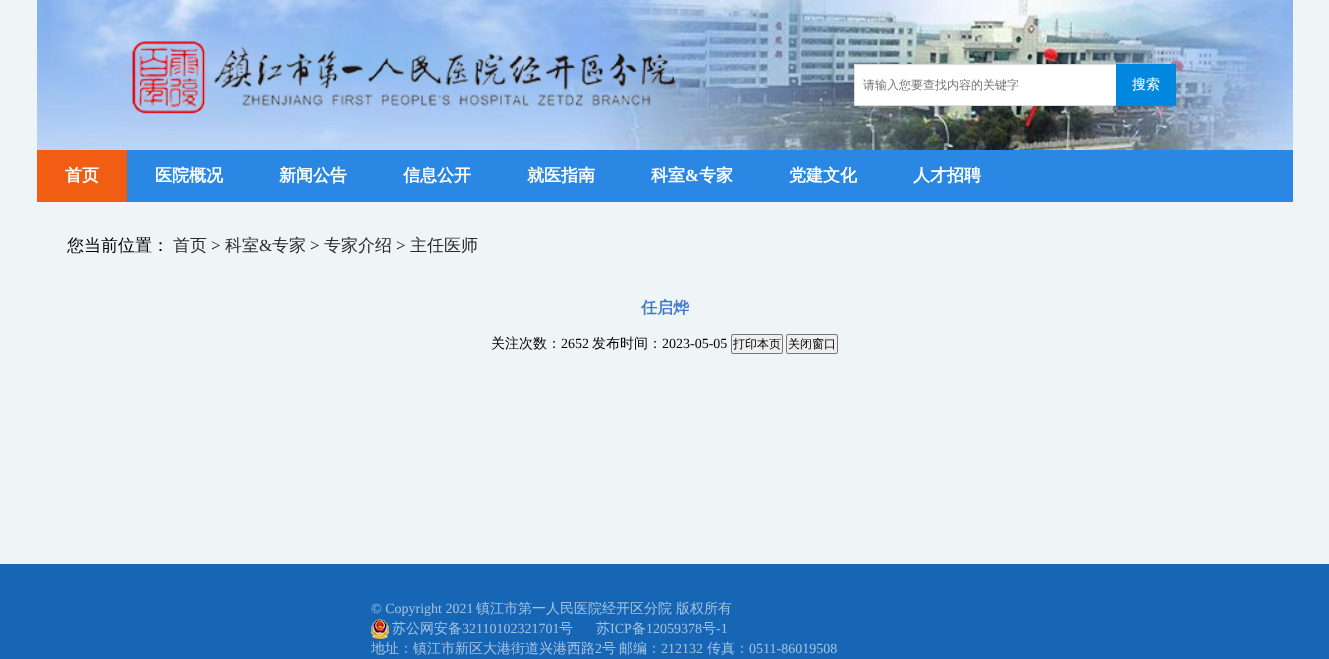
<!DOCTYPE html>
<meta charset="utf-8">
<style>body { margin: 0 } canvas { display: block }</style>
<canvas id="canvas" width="1329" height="659"></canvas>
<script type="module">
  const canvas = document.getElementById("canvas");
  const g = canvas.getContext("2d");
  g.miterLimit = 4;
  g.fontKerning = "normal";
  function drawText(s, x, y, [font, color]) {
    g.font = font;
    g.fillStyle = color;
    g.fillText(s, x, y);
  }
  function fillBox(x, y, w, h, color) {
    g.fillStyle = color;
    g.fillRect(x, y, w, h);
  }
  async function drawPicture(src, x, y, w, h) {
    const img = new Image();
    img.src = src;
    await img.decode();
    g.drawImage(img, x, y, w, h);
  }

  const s1 = ["500 12px WenQuanYi Zen Hei", "#757575"];
  const s2 = ["500 14px WenQuanYi Zen Hei", "#FFFFFF"];
  const s3 = ["bold 17px WenQuanYi Zen Hei", "#FFFFFF"];
  const s4 = ["bold 17px Liberation Serif", "#FFFFFF"];
  const s5 = ["500 17px WenQuanYi Zen Hei", "#000000"];
  const s6 = ["500 17px WenQuanYi Zen Hei", "#2B2B2B"];
  const s7 = ["17px Liberation Serif", "#000000"];
  const s8 = ["17px Liberation Serif", "#2B2B2B"];
  const s9 = ["bold 16px WenQuanYi Zen Hei", "#3F78CE"];
  const s10 = ["500 14px WenQuanYi Zen Hei", "#000000"];
  const s11 = ["14px Liberation Serif", "#000000"];
  const s12 = ["500 12px WenQuanYi Zen Hei", "#000000"];
  const s13 = ["14px Liberation Serif", "#A2C2E1"];
  const s14 = ["500 14px WenQuanYi Zen Hei", "#A2C2E1"];

  fillBox(0, 0, 1329, 659, "#EFF4F7");
  await drawPicture("pic1.png", 37, 0, 1256, 150);
  g.strokeStyle = "#DDDDDD";
  g.strokeRect(854.5, 64.5, 321, 41);
  fillBox(855, 65, 261, 40, "#FFFFFF");
  drawText("请输入您要查找内容的关键字", 863, 89, s1);
  fillBox(1116, 64, 60, 42, "#0088E0");
  drawText("搜索", 1132, 89, s2);
  fillBox(127, 150, 1166, 52, "#2B87E4");
  fillBox(37, 150, 90, 52, "#F25D14");
  drawText("首页", 65, 181, s3);
  drawText("医院概况", 155, 181, s3);
  drawText("新闻公告", 279, 181, s3);
  drawText("信息公开", 403, 181, s3);
  drawText("就医指南", 527, 181, s3);
  drawText("科室", 651, 181, s3);
  drawText("&", 685, 181, s4);
  drawText("专家", 699, 181, s3);
  drawText("党建文化", 789, 181, s3);
  drawText("人才招聘", 913, 181, s3);
  drawText("您当前位置：", 67, 251, s5);
  drawText("首页", 173, 251, s6);
  drawText(">", 211, 251, s7);
  drawText("科室", 225, 251, s6);
  drawText("&", 259, 251, s8);
  drawText("专家", 272, 251, s6);
  drawText(">", 310, 251, s7);
  drawText("专家介绍", 324, 251, s6);
  drawText(">", 396, 251, s7);
  drawText("主任医师", 410, 251, s6);
  drawText("任启烨", 641, 313, s9);
  drawText("关注次数：", 491, 348, s10);
  drawText("2652", 561, 348, s11);
  drawText("发布时间：", 592, 348, s10);
  drawText("2023-05-05", 662, 348, s11);
  g.fillStyle = "#EFEFEF";
  g.beginPath();
  g.roundRect(731.5, 334.5, 51, 19, 1.5);
  g.fill();
  g.strokeStyle = "#767676";
  g.stroke();
  drawText("打印本页", 733, 348, s12);
  g.fillStyle = "#EFEFEF";
  g.beginPath();
  g.roundRect(786.5, 334.5, 51, 19, 1.5);
  g.fill();
  g.stroke();
  drawText("关闭窗口", 788, 348, s12);
  fillBox(0, 564, 1329, 95, "#1766B5");
  drawText("© Copyright 2021", 371, 613, s13);
  drawText("镇江市第一人民医院经开区分院", 476, 613, s14);
  drawText("版权所有", 676, 613, s14);
  await drawPicture("pic2.png", 371, 619, 18, 20);
  drawText("苏公网安备", 392, 633, s14);
  drawText("32110102321701", 462, 633, s13);
  drawText("号", 559, 633, s14);
  drawText("苏", 596, 633, s14);
  drawText("ICP", 610, 633, s13);
  drawText("备", 632, 633, s14);
  drawText("12059378", 646, 633, s13);
  drawText("号", 702, 633, s14);
  drawText("-1", 716, 633, s13);
  drawText("地址：镇江市新区大港街道兴港西路", 371, 653, s14);
  drawText("2", 595, 653, s13);
  drawText("号", 602, 653, s14);
  drawText("邮编：", 619, 653, s14);
  drawText("212132", 661, 653, s13);
  drawText("传真：", 707, 653, s14);
  drawText("0511-86019508", 749, 653, s13);
</script>
